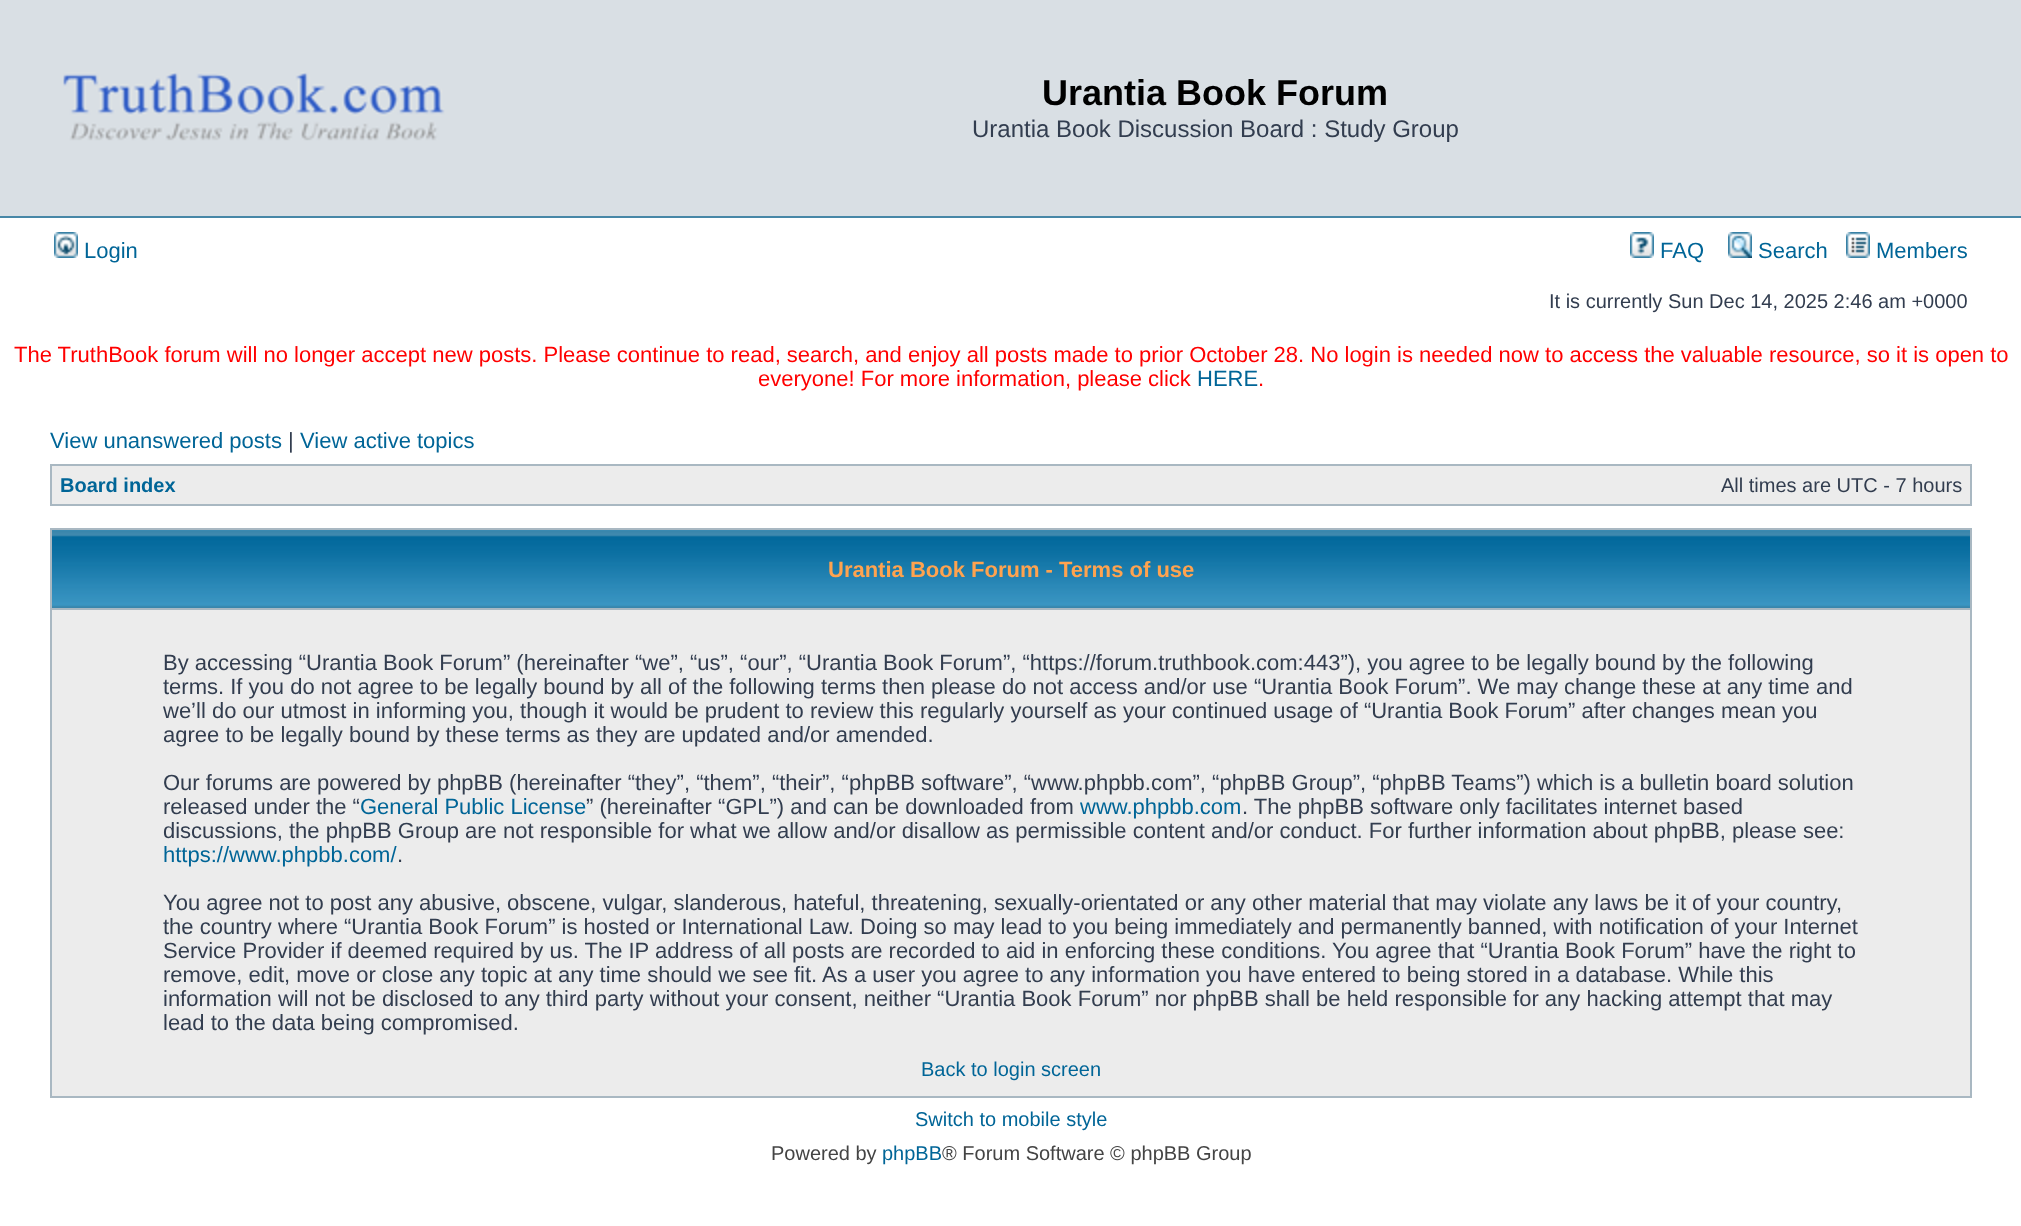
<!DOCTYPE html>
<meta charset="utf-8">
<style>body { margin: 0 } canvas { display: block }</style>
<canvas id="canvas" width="2021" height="1226"></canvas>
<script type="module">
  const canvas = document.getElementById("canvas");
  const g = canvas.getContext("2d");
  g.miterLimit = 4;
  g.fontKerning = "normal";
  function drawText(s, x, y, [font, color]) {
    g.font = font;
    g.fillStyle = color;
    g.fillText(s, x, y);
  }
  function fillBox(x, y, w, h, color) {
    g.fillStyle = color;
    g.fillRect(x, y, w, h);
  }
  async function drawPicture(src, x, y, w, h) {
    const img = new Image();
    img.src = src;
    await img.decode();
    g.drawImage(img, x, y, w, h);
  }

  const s1 = ["bold 36px Liberation Sans", "#000000"];
  const s2 = ["24px Liberation Sans", "#323D4F"];
  const s3 = ["22px Liberation Sans", "#006597"];
  const s4 = ["20px Liberation Sans", "#323D4F"];
  const s5 = ["22px Liberation Sans", "#FF0000"];
  const s6 = ["22px Liberation Sans", "#323D4F"];
  const s7 = ["bold 20px Liberation Sans", "#006597"];
  const s8 = ["bold 22px Liberation Sans", "#FFA34F"];
  const s9 = ["20px Liberation Sans", "#006597"];
  const s10 = ["20px Liberation Sans", "#444444"];

  fillBox(0, 0, 2021, 1226, "#FFFFFF");
  fillBox(0, 0, 2021, 216, "#D9DFE4");
  fillBox(0, 216, 2021, 2, "#4787A7");
  await drawPicture("pic1.png", 63, 72, 382, 69);
  drawText("Urantia Book Forum", 1042, 105, s1);
  drawText("Urantia Book Discussion Board : Study Group", 972, 137, s2);
  await drawPicture("pic2.png", 54, 232, 24, 26);
  drawText("Login", 84, 258, s3);
  await drawPicture("pic3.png", 1630, 232, 24, 26);
  drawText("FAQ", 1660, 258, s3);
  await drawPicture("pic4.png", 1728, 232, 24, 26);
  drawText("Search", 1758, 258, s3);
  await drawPicture("pic5.png", 1846, 232, 24, 26);
  drawText("Members", 1876, 258, s3);
  drawText("It is currently Sun Dec 14, 2025 2:46 am +0000", 1549, 308, s4);
  drawText("The TruthBook forum will no longer accept new posts. Please continue to read, search, and enjoy all posts made to prior October 28. No login is needed now to access the valuable resource, so it is open to", 14, 362, s5);
  drawText("everyone! For more information, please click", 758, 386, s5);
  drawText("HERE", 1197, 386, s3);
  drawText(".", 1258, 386, s5);
  drawText("View unanswered posts", 50, 448, s3);
  drawText("|", 288, 448, s6);
  drawText("View active topics", 300, 448, s3);
  fillBox(50, 464, 1922, 42, "#A9B8C2");
  fillBox(52, 466, 1918, 38, "#ECECEC");
  drawText("Board index", 60, 492, s7);
  drawText("All times are UTC - 7 hours", 1721, 492, s4);
  fillBox(50, 528, 1922, 570, "#A9B8C2");
  await drawPicture("pic6.png", 52, 530, 1918, 78);
  drawText("Urantia Book Forum - Terms of use", 828, 577, s8);
  fillBox(52, 610, 1918, 486, "#ECECEC");
  drawText("By accessing “Urantia Book Forum” (hereinafter “we”, “us”, “our”, “Urantia Book Forum”, “https://forum.truthbook.com:443”), you agree to be legally bound by the following", 163, 670, s6);
  drawText("terms. If you do not agree to be legally bound by all of the following terms then please do not access and/or use “Urantia Book Forum”. We may change these at any time and", 163, 694, s6);
  drawText("we’ll do our utmost in informing you, though it would be prudent to review this regularly yourself as your continued usage of “Urantia Book Forum” after changes mean you", 163, 718, s6);
  drawText("agree to be legally bound by these terms as they are updated and/or amended.", 163, 742, s6);
  drawText("Our forums are powered by phpBB (hereinafter “they”, “them”, “their”, “phpBB software”, “www.phpbb.com”, “phpBB Group”, “phpBB Teams”) which is a bulletin board solution", 163, 790, s6);
  drawText("released under the “", 163, 814, s6);
  drawText("General Public License", 360, 814, s3);
  drawText("” (hereinafter “GPL”) and can be downloaded from", 586, 814, s6);
  drawText("www.phpbb.com", 1080, 814, s3);
  drawText(". The phpBB software only facilitates internet based", 1242, 814, s6);
  drawText("discussions, the phpBB Group are not responsible for what we allow and/or disallow as permissible content and/or conduct. For further information about phpBB, please see:", 163, 838, s6);
  drawText("https://www.phpbb.com/", 163, 862, s3);
  drawText(".", 397, 862, s6);
  drawText("You agree not to post any abusive, obscene, vulgar, slanderous, hateful, threatening, sexually-orientated or any other material that may violate any laws be it of your country,", 163, 910, s6);
  drawText("the country where “Urantia Book Forum” is hosted or International Law. Doing so may lead to you being immediately and permanently banned, with notification of your Internet", 163, 934, s6);
  drawText("Service Provider if deemed required by us. The IP address of all posts are recorded to aid in enforcing these conditions. You agree that “Urantia Book Forum” have the right to", 163, 958, s6);
  drawText("remove, edit, move or close any topic at any time should we see fit. As a user you agree to any information you have entered to being stored in a database. While this", 163, 982, s6);
  drawText("information will not be disclosed to any third party without your consent, neither “Urantia Book Forum” nor phpBB shall be held responsible for any hacking attempt that may", 163, 1006, s6);
  drawText("lead to the data being compromised.", 163, 1030, s6);
  drawText("Back to login screen", 921, 1076, s9);
  drawText("Switch to mobile style", 915, 1126, s9);
  drawText("Powered by", 771, 1160, s10);
  drawText("phpBB", 882, 1160, s9);
  drawText("® Forum Software © phpBB Group", 942, 1160, s10);
</script>
